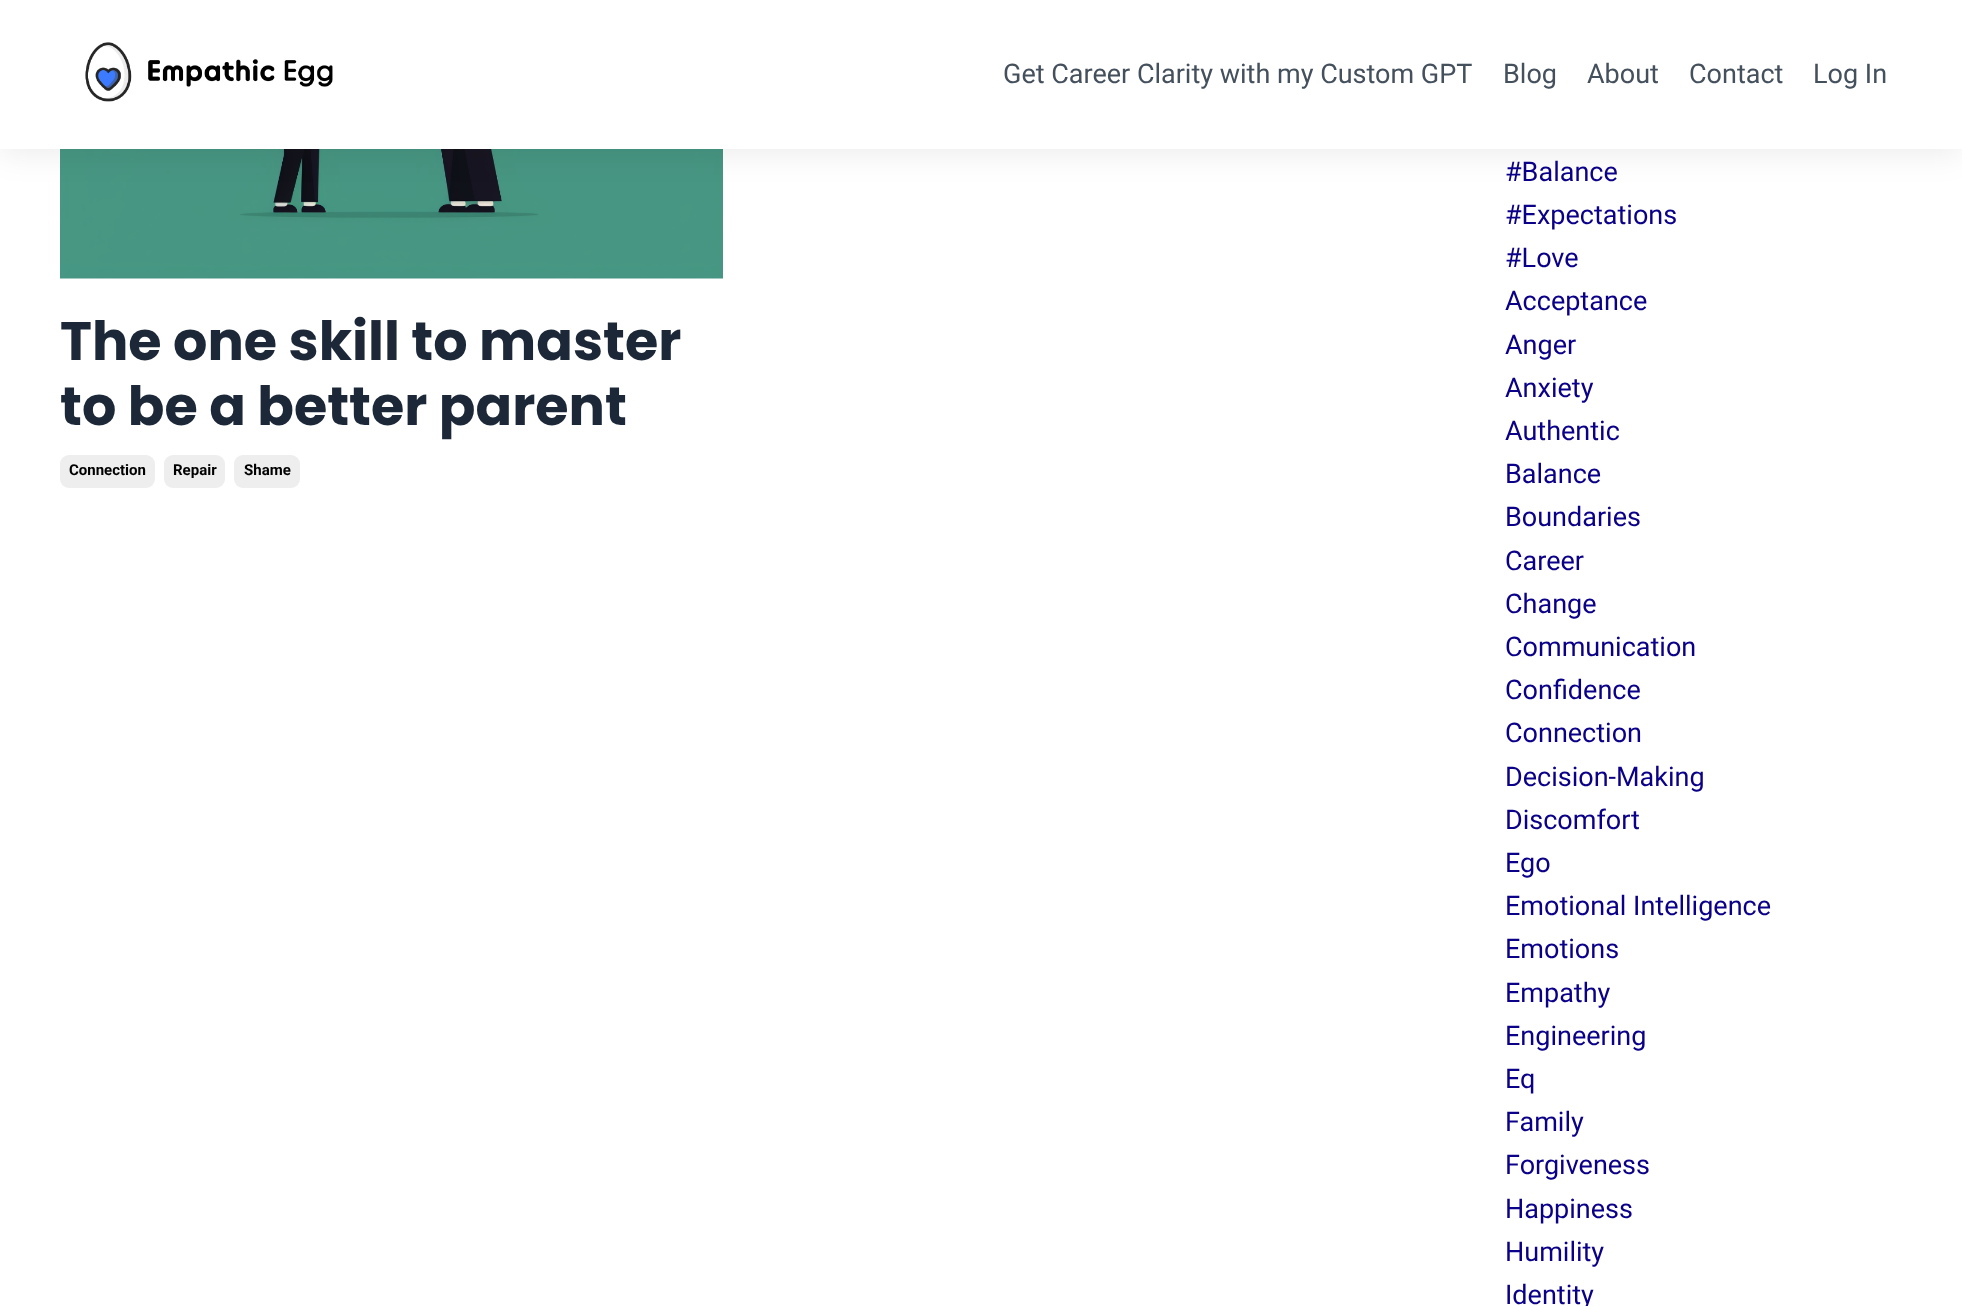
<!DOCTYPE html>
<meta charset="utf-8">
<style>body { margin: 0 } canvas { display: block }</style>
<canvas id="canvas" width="1962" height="1306"></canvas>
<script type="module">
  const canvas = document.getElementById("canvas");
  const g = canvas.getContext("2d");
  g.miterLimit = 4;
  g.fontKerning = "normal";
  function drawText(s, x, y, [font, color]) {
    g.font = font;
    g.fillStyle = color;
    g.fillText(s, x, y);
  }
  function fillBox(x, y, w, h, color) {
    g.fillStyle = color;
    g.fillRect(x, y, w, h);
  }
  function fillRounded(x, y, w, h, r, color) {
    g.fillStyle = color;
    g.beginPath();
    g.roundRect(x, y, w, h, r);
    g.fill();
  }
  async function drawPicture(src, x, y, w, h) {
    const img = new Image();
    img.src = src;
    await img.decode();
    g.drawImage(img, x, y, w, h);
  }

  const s1 = ["27px Roboto", "#45505D"];
  const s2 = ["bold 54px Poppins", "#1C2838"];
  const s3 = ["bold 15px Roboto", "#000000"];
  const s4 = ["27px Roboto", "#0B0088"];

  fillBox(0, 0, 1962, 1306, "#FFFFFF");
  await drawPicture("pic2.png", 60, 149, 663, 130);
  g.fillStyle = "rgba(0, 0, 0, 0.07)";
  g.filter = "blur(15px)";
  g.beginPath();
  g.rect(0, 6, 1962, 149);
  g.fill();
  g.filter = "none";
  fillBox(0, 0, 1962, 149, "#FFFFFF");
  await drawPicture("pic1.png", 85, 42, 248, 60);
  drawText("Get Career Clarity with my Custom GPT", 1003, 83, s1);
  drawText("Blog", 1503, 83, s1);
  drawText("About", 1587, 83, s1);
  drawText("Contact", 1689, 83, s1);
  drawText("Log In", 1813, 83, s1);
  drawText("The one skill to master", 60, 360, s2);
  drawText("to be a better parent", 60, 425, s2);
  fillRounded(60, 455, 95, 33, 9, "#EEEEEE");
  drawText("Connection", 69, 475, s3);
  fillRounded(164, 455, 61, 33, 9, "#EEEEEE");
  drawText("Repair", 173, 475, s3);
  fillRounded(234, 455, 66, 33, 9, "#EEEEEE");
  drawText("Shame", 244, 475, s3);
  drawText("#Balance", 1505, 181, s4);
  drawText("#Expectations", 1505, 224, s4);
  drawText("#Love", 1505, 267, s4);
  drawText("Acceptance", 1505, 310, s4);
  drawText("Anger", 1505, 354, s4);
  drawText("Anxiety", 1505, 397, s4);
  drawText("Authentic", 1505, 440, s4);
  drawText("Balance", 1505, 483, s4);
  drawText("Boundaries", 1505, 526, s4);
  drawText("Career", 1505, 570, s4);
  drawText("Change", 1505, 613, s4);
  drawText("Communication", 1505, 656, s4);
  drawText("Confidence", 1505, 699, s4);
  drawText("Connection", 1505, 742, s4);
  drawText("Decision-Making", 1505, 786, s4);
  drawText("Discomfort", 1505, 829, s4);
  drawText("Ego", 1505, 872, s4);
  drawText("Emotional Intelligence", 1505, 915, s4);
  drawText("Emotions", 1505, 958, s4);
  drawText("Empathy", 1505, 1002, s4);
  drawText("Engineering", 1505, 1045, s4);
  drawText("Eq", 1505, 1088, s4);
  drawText("Family", 1505, 1131, s4);
  drawText("Forgiveness", 1505, 1174, s4);
  drawText("Happiness", 1505, 1218, s4);
  drawText("Humility", 1505, 1261, s4);
  drawText("Identity", 1505, 1304, s4);
</script>
